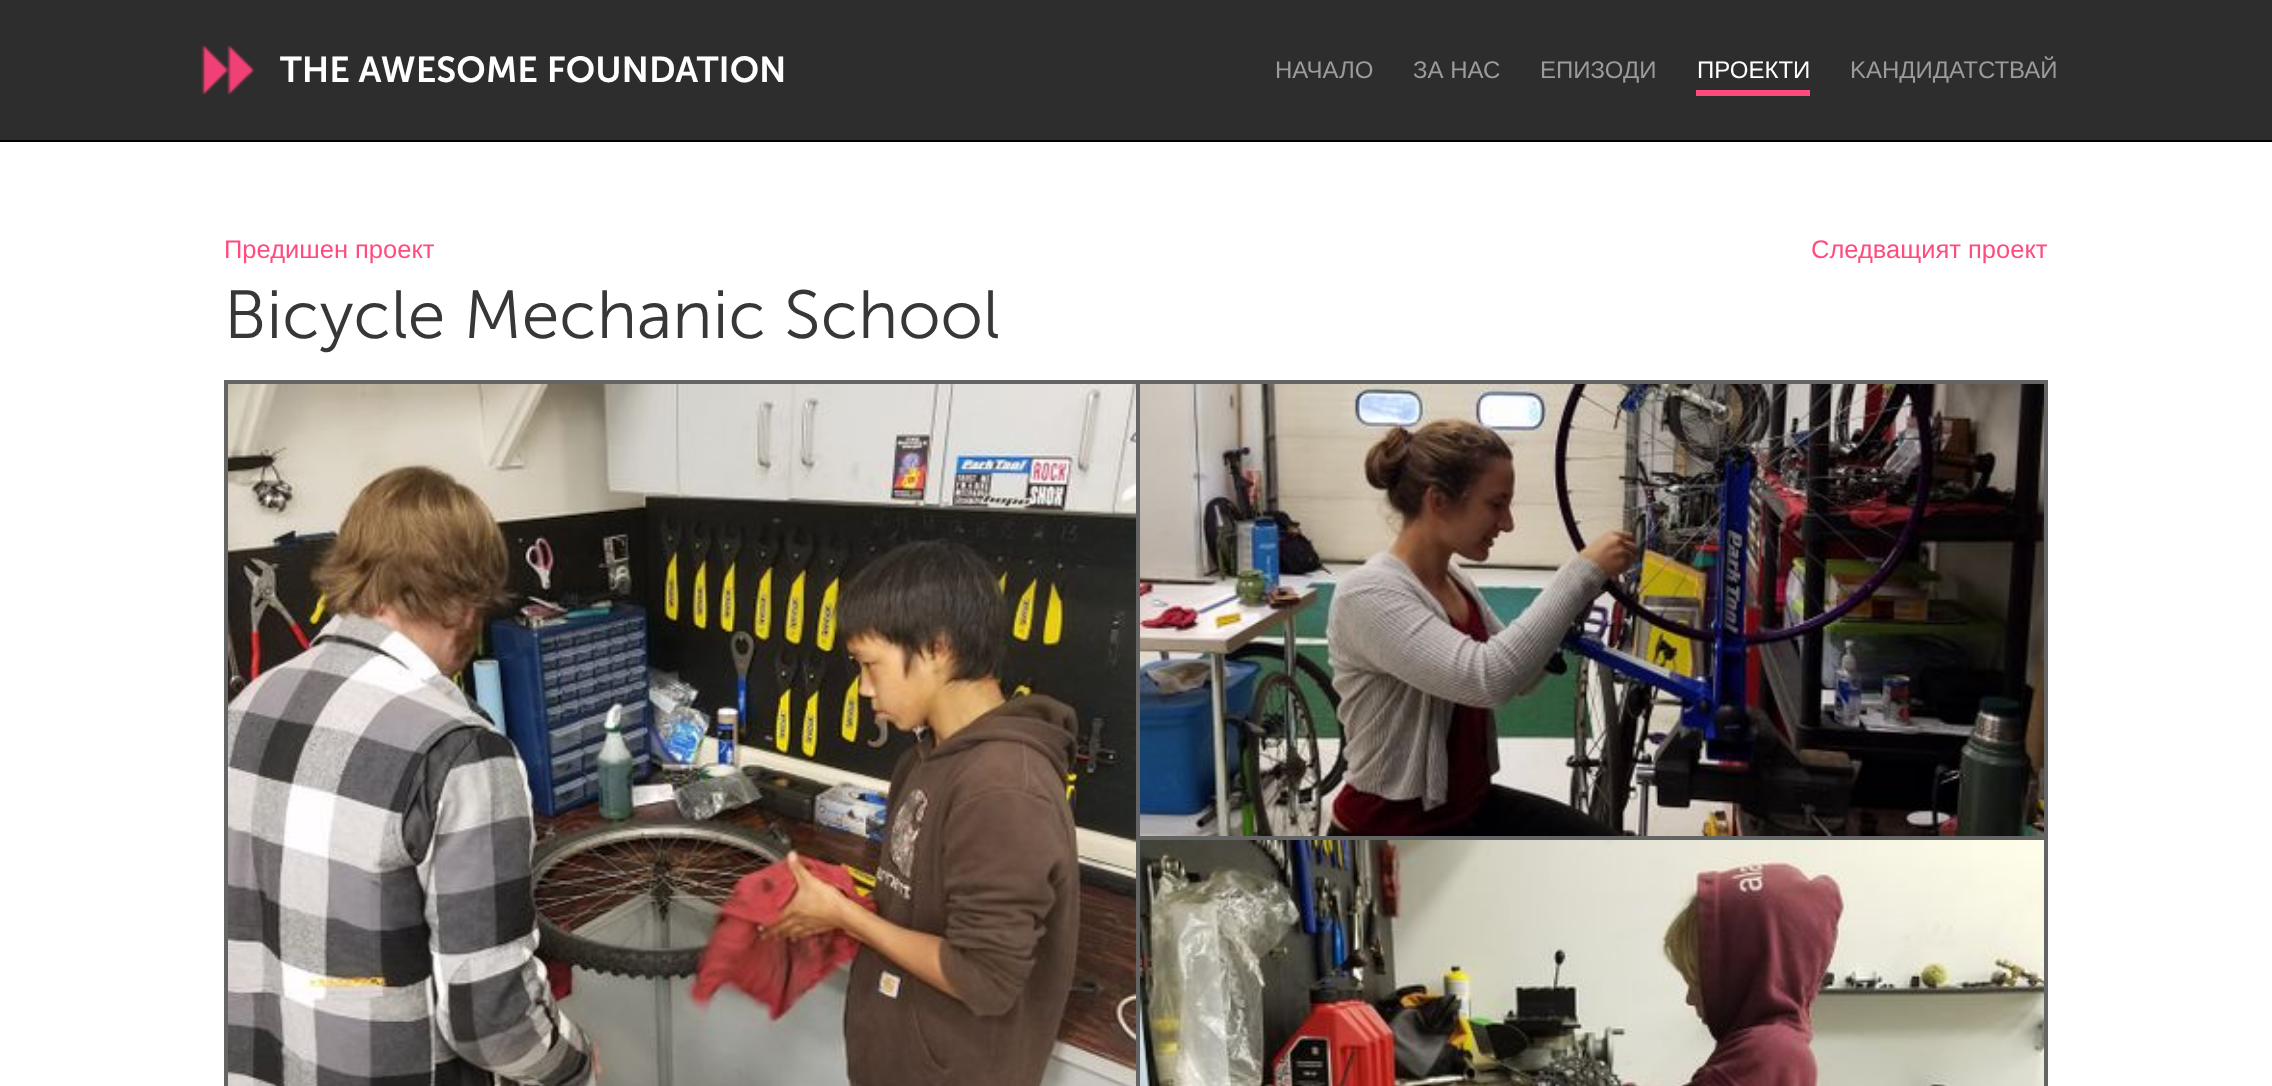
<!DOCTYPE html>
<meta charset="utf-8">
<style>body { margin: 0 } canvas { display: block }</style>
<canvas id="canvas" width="2272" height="1086"></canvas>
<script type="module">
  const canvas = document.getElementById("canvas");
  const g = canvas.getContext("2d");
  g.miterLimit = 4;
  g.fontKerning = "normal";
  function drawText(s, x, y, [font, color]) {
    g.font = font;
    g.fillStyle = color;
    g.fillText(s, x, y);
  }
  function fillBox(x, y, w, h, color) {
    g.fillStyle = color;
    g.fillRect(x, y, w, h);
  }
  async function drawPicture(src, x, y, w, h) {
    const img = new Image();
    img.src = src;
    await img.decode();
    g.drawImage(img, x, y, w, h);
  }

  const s1 = ["600 36px 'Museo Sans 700'", "#FFFFFF"];
  const s2 = ["24px Liberation Sans", "#9B9B9B"];
  const s3 = ["24px Liberation Sans", "#FFFFFF"];
  const s4 = ["25.5px Liberation Sans", "#FF4B7E"];
  const s5 = ["300 68px 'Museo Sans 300'", "#373737"];

  fillBox(0, 0, 2272, 1086, "#FFFFFF");
  fillBox(0, 0, 2272, 140, "#2D2D2D");
  fillBox(0, 140, 2272, 2, "#000000");
  await drawPicture("pic1.png", 201, 45, 54, 50);
  drawText("THE AWESOME FOUNDATION", 280, 82, s1);
  drawText("НАЧАЛО", 1275, 78, s2);
  drawText("ЗА НАС", 1413, 78, s2);
  drawText("ЕПИЗОДИ", 1540, 78, s2);
  fillBox(1696, 90, 114, 6, "#FF4B7E");
  drawText("ПРОЕКТИ", 1697, 78, s3);
  drawText("KАНДИДАТСТВАЙ", 1850, 78, s2);
  drawText("Предишен проект", 224, 258, s4);
  drawText("Следващият проект", 1811, 258, s4);
  drawText("Bicycle Mechanic School", 224, 338, s5);
  fillBox(224, 380, 1824, 706, "#646464");
  await drawPicture("pic2.png", 228, 384, 908, 702);
  await drawPicture("pic3.png", 1140, 384, 904, 452);
  await drawPicture("pic4.png", 1140, 840, 904, 246);
</script>
